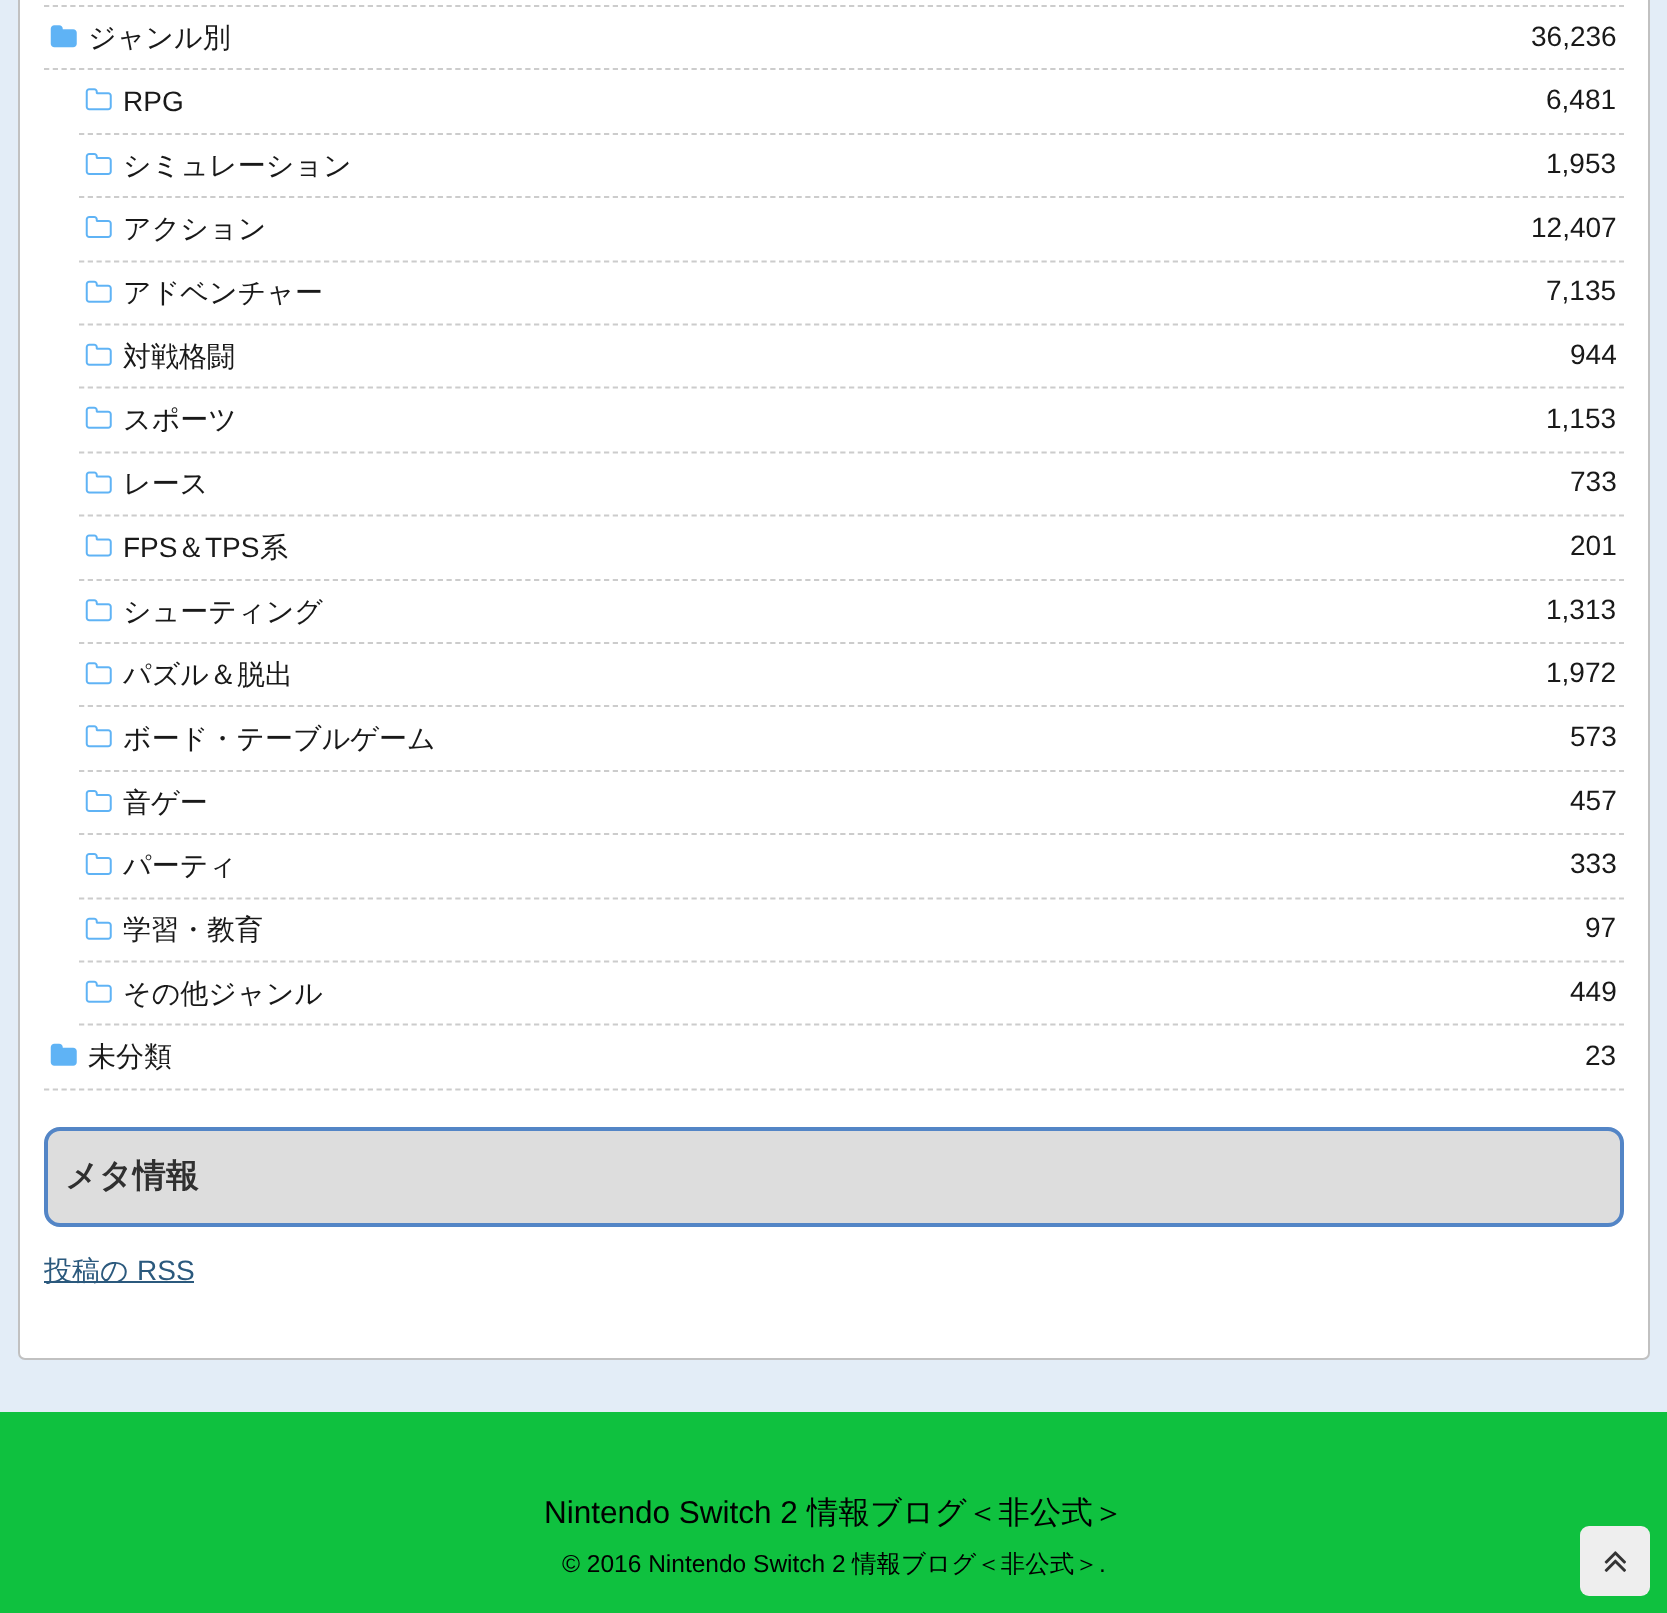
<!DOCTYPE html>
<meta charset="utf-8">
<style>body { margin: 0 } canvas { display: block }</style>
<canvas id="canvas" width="1667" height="1613"></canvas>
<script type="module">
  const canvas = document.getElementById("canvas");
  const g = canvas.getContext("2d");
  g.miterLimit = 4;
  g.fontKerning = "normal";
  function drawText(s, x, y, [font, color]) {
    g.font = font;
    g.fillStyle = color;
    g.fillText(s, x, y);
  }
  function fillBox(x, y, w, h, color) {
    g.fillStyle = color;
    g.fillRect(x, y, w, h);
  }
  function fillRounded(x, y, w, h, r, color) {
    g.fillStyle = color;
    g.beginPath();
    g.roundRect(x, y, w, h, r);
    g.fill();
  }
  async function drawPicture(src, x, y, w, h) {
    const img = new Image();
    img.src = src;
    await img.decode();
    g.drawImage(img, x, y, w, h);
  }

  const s1 = ["500 28px WenQuanYi Zen Hei", "#191919"];
  const s2 = ["28px Liberation Sans", "#191919"];
  const s3 = ["bold 33px WenQuanYi Zen Hei", "#303030"];
  const s4 = ["500 28px WenQuanYi Zen Hei", "#2B597D"];
  const s5 = ["28px Liberation Sans", "#2B597D"];
  const s6 = ["31.5px Liberation Sans", "#000000"];
  const s7 = ["500 31.5px WenQuanYi Zen Hei", "#000000"];
  const s8 = ["24.5px Liberation Sans", "#000000"];
  const s9 = ["500 24.5px WenQuanYi Zen Hei", "#000000"];

  fillBox(0, 0, 1667, 1613, "#E3EDF7");
  g.fillStyle = "#FFFFFF";
  g.beginPath();
  g.roundRect(19, -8, 1630, 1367, 6);
  g.fill();
  g.strokeStyle = "#C1C1C1";
  g.lineWidth = 2;
  g.stroke();
  g.beginPath();
  g.moveTo(44, 6);
  g.lineTo(1624, 6);
  g.strokeStyle = "#CCCCCC";
  g.lineWidth = 1.8;
  g.setLineDash([5.25, 3.5]);
  g.stroke();
  g.beginPath();
  g.moveTo(44, 69);
  g.lineTo(1624, 69);
  g.stroke();
  await drawPicture("pic1.png", 50, 25, 27, 23);
  drawText("ジャンル別", 88, 47, s1);
  drawText("36,236", 1531, 46, s2);
  g.beginPath();
  g.moveTo(79, 134);
  g.lineTo(1624, 134);
  g.stroke();
  await drawPicture("pic2.png", 85, 88, 27, 23);
  drawText("RPG", 123, 111, s2);
  drawText("6,481", 1546, 109, s2);
  g.beginPath();
  g.moveTo(79, 197);
  g.lineTo(1624, 197);
  g.stroke();
  await drawPicture("pic3.png", 85, 153, 27, 22);
  drawText("シミュレーション", 123, 175, s1);
  drawText("1,953", 1546, 173, s2);
  g.beginPath();
  g.moveTo(79, 261.5);
  g.lineTo(1624, 261.5);
  g.stroke();
  await drawPicture("pic3.png", 85, 216, 27, 22);
  drawText("アクション", 123, 238, s1);
  drawText("12,407", 1531, 237, s2);
  g.beginPath();
  g.moveTo(79, 324.5);
  g.lineTo(1624, 324.5);
  g.stroke();
  await drawPicture("pic4.png", 85, 280, 27, 23);
  drawText("アドベンチャー", 123, 302, s1);
  drawText("7,135", 1546, 300, s2);
  g.beginPath();
  g.moveTo(79, 387.5);
  g.lineTo(1624, 387.5);
  g.stroke();
  await drawPicture("pic4.png", 85, 343, 27, 23);
  drawText("対戦格闘", 123, 366, s1);
  drawText("944", 1570, 364, s2);
  g.beginPath();
  g.moveTo(79, 452.5);
  g.lineTo(1624, 452.5);
  g.stroke();
  await drawPicture("pic4.png", 85, 406, 27, 23);
  drawText("スポーツ", 123, 429, s1);
  drawText("1,153", 1546, 428, s2);
  g.beginPath();
  g.moveTo(79, 515.5);
  g.lineTo(1624, 515.5);
  g.stroke();
  await drawPicture("pic5.png", 85, 471, 27, 23);
  drawText("レース", 123, 493, s1);
  drawText("733", 1570, 491, s2);
  g.beginPath();
  g.moveTo(79, 580);
  g.lineTo(1624, 580);
  g.stroke();
  await drawPicture("pic5.png", 85, 534, 27, 23);
  drawText("FPS", 123, 557, s2);
  drawText("＆", 177, 557, s1);
  drawText("TPS", 205, 557, s2);
  drawText("系", 260, 557, s1);
  drawText("201", 1570, 555, s2);
  g.beginPath();
  g.moveTo(79, 643);
  g.lineTo(1624, 643);
  g.stroke();
  await drawPicture("pic2.png", 85, 599, 27, 23);
  drawText("シューティング", 123, 621, s1);
  drawText("1,313", 1546, 619, s2);
  g.beginPath();
  g.moveTo(79, 706);
  g.lineTo(1624, 706);
  g.stroke();
  await drawPicture("pic2.png", 85, 662, 27, 23);
  drawText("パズル＆脱出", 123, 684, s1);
  drawText("1,972", 1546, 682, s2);
  g.beginPath();
  g.moveTo(79, 771);
  g.lineTo(1624, 771);
  g.stroke();
  await drawPicture("pic2.png", 85, 725, 27, 23);
  drawText("ボード・テーブルゲーム", 123, 748, s1);
  drawText("573", 1570, 746, s2);
  g.beginPath();
  g.moveTo(79, 834);
  g.lineTo(1624, 834);
  g.stroke();
  await drawPicture("pic3.png", 85, 790, 27, 22);
  drawText("音ゲー", 123, 812, s1);
  drawText("457", 1570, 810, s2);
  g.beginPath();
  g.moveTo(79, 898.5);
  g.lineTo(1624, 898.5);
  g.stroke();
  await drawPicture("pic3.png", 85, 853, 27, 22);
  drawText("パーティ", 123, 875, s1);
  drawText("333", 1570, 873, s2);
  g.beginPath();
  g.moveTo(79, 961.5);
  g.lineTo(1624, 961.5);
  g.stroke();
  await drawPicture("pic4.png", 85, 917, 27, 23);
  drawText("学習・教育", 123, 939, s1);
  drawText("97", 1585, 937, s2);
  g.beginPath();
  g.moveTo(79, 1024.5);
  g.lineTo(1624, 1024.5);
  g.stroke();
  await drawPicture("pic4.png", 85, 980, 27, 23);
  drawText("その他ジャンル", 123, 1003, s1);
  drawText("449", 1570, 1001, s2);
  g.beginPath();
  g.moveTo(44, 1089.5);
  g.lineTo(1624, 1089.5);
  g.stroke();
  await drawPicture("pic6.png", 50, 1043, 27, 23);
  drawText("未分類", 88, 1066, s1);
  drawText("23", 1585, 1065, s2);
  g.fillStyle = "#DDDDDD";
  g.beginPath();
  g.roundRect(46, 1129, 1576, 96, 14);
  g.fill();
  g.strokeStyle = "#5385C6";
  g.lineWidth = 4;
  g.setLineDash([]);
  g.stroke();
  drawText("メタ情報", 65, 1187, s3);
  fillBox(44, 1281, 150, 2, "#2B597D");
  drawText("投稿の", 44, 1280, s4);
  drawText("RSS", 137, 1280, s5);
  fillBox(0, 1412, 1667, 201, "#0FC13F");
  drawText("Nintendo Switch 2", 544, 1523, s6);
  drawText("情報ブログ＜非公式＞", 807, 1523, s7);
  drawText("© 2016 Nintendo Switch 2", 562, 1572, s8);
  drawText("情報ブログ＜非公式＞", 852, 1572, s9);
  drawText(".", 1099, 1572, s8);
  fillRounded(1580, 1526, 70, 70, 9, "#EEEEEE");
  await drawPicture("pic7.png", 1604, 1551, 22, 21);
</script>
